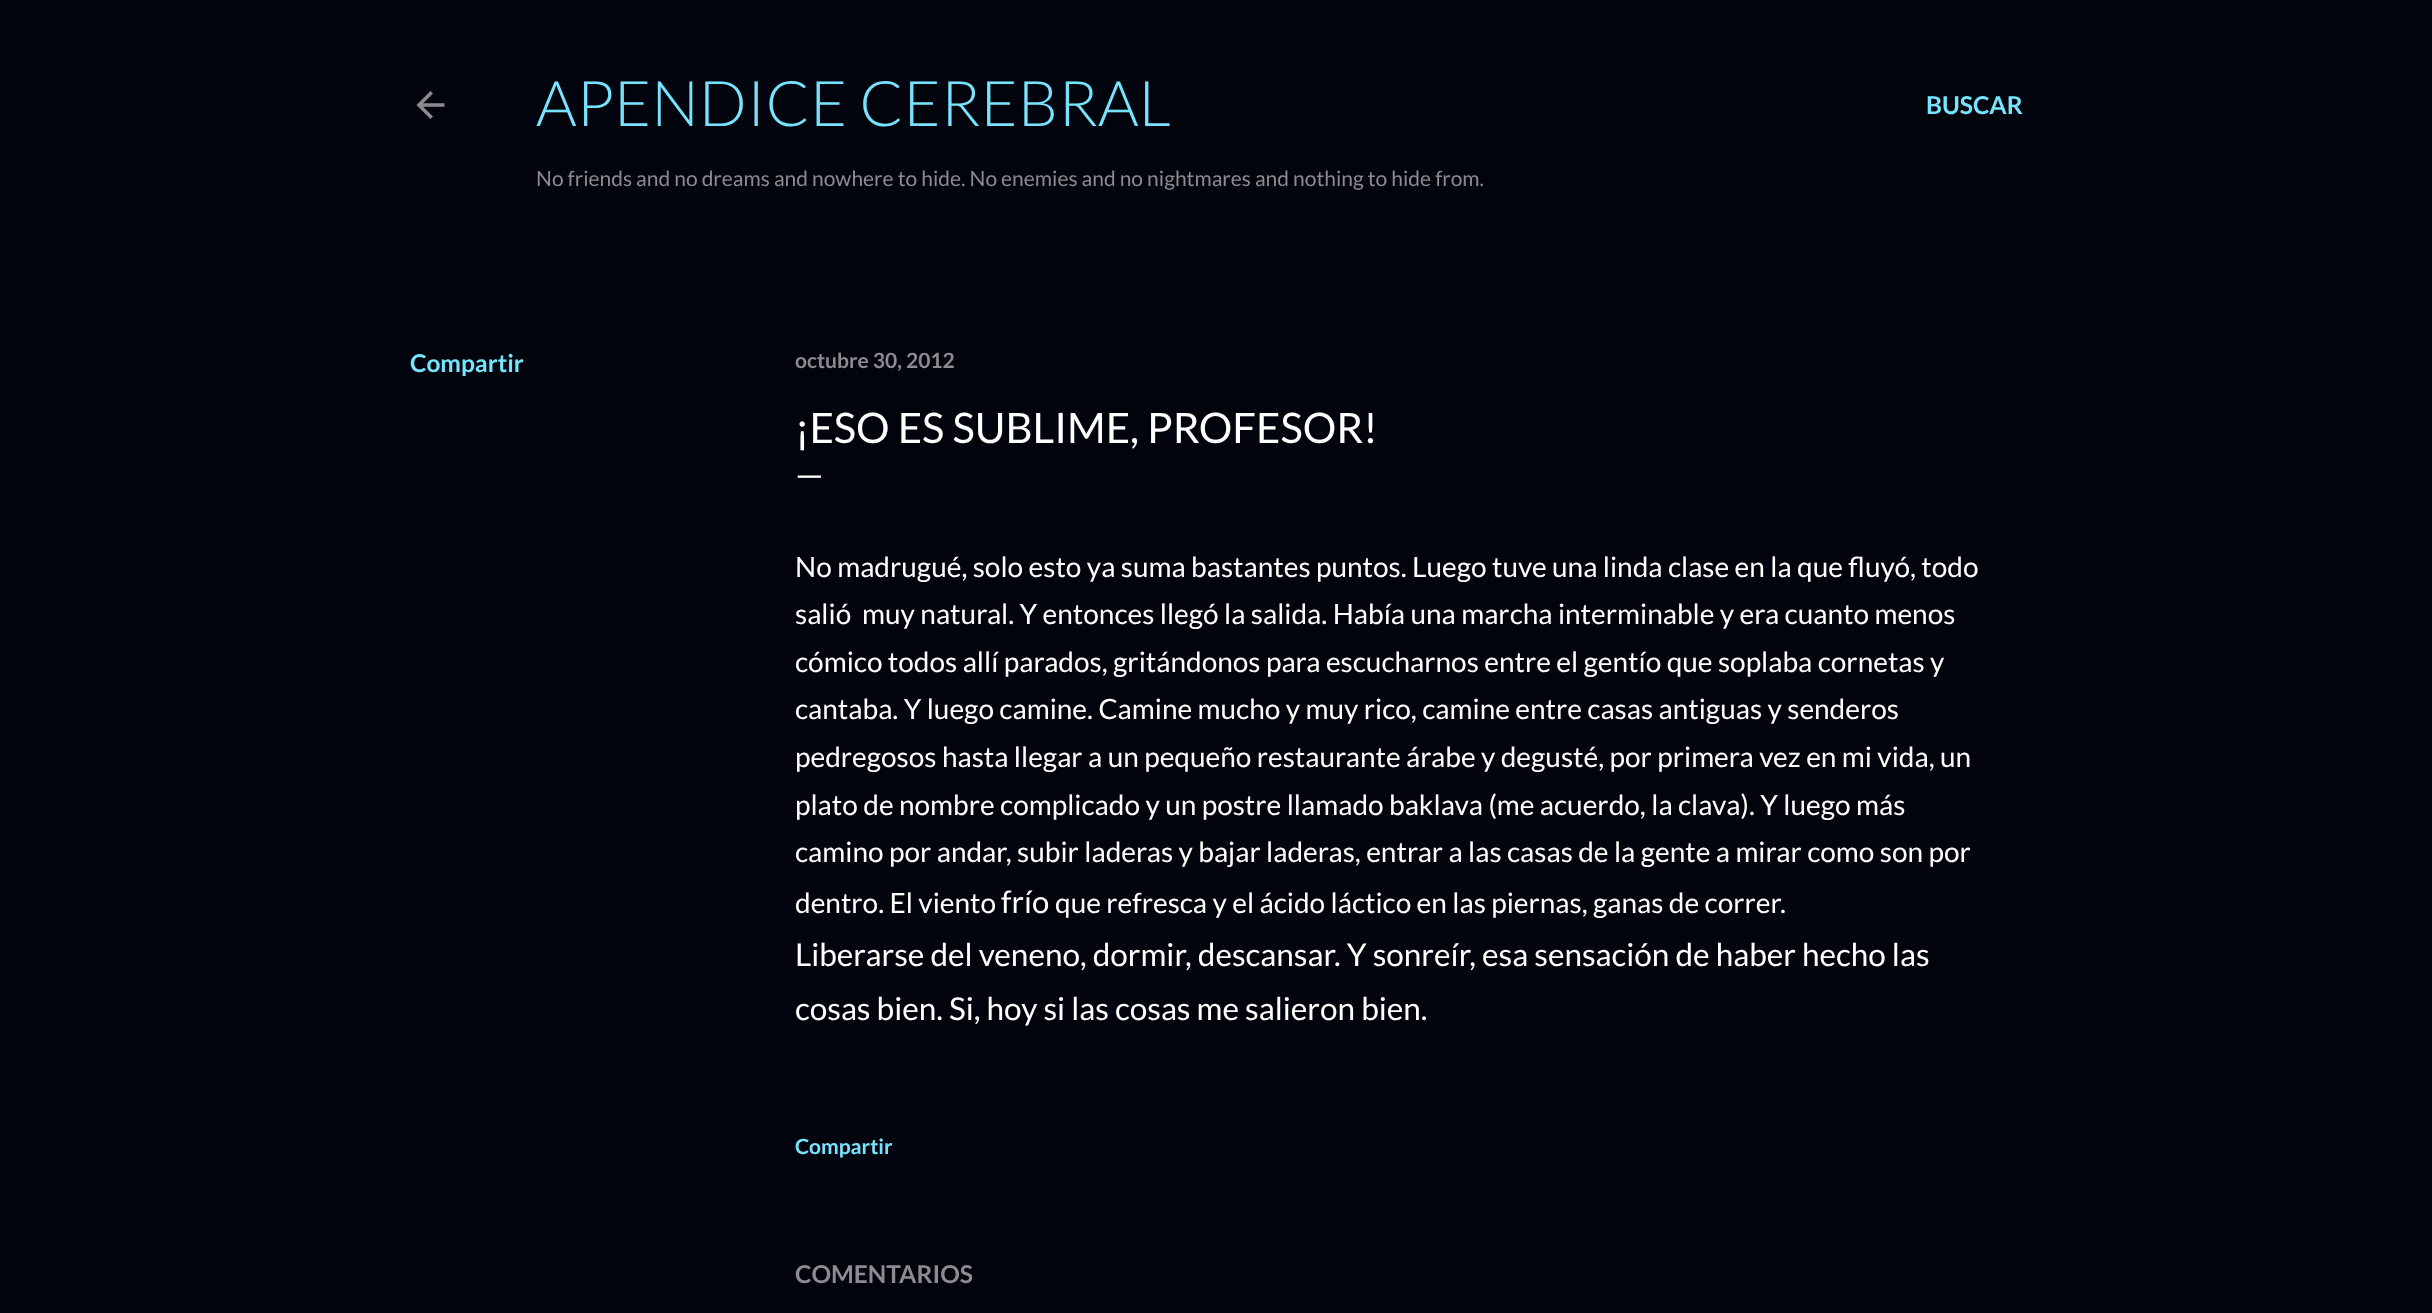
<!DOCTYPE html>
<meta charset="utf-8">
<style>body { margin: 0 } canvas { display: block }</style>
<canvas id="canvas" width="2432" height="1313"></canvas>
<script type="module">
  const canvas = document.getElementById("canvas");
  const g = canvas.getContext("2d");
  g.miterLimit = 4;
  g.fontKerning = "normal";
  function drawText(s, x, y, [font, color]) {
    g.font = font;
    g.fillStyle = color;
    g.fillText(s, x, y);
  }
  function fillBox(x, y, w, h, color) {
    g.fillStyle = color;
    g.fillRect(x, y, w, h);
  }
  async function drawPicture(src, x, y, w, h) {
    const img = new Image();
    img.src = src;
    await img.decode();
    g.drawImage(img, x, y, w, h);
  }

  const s1 = ["300 63px Lato", "#77E4FF"];
  const s2 = ["21px Lato", "#8A8C8F"];
  const s3 = ["bold 24.5px Lato", "#77E4FF"];
  const s4 = ["bold 21px Lato", "#8A8C8F"];
  const s5 = ["42px Lato", "#FFFFFF"];
  const s6 = ["35px Lato", "#FFFFFF"];
  const s7 = ["28px Lato", "#FFFFFF"];
  const s8 = ["31px Lato", "#FFFFFF"];
  const s9 = ["31.5px Lato", "#FFFFFF"];
  const s10 = ["bold 21px Lato", "#77E4FF"];
  const s11 = ["bold 24.5px Lato", "#8A8C8F"];

  fillBox(0, 0, 2432, 1313, "#01040C");
  await drawPicture("pic1.png", 416, 91, 29, 28);
  drawText("APENDICE CEREBRAL", 536, 126, s1);
  drawText("No friends and no dreams and nowhere to hide. No enemies and no nightmares and nothing to hide from.", 536, 186, s2);
  drawText("BUSCAR", 1926, 114, s3);
  drawText("Compartir", 410, 372, s3);
  drawText("octubre 30, 2012", 795, 368, s4);
  drawText("¡ESO ES SUBLIME, PROFESOR!", 795, 443, s5);
  drawText("—", 795, 487, s6);
  drawText("No madrugué, solo esto ya suma bastantes puntos. Luego tuve una linda clase en la que fluyó, todo", 795, 577, s7);
  drawText("salió  muy natural. Y entonces llegó la salida. Había una marcha interminable y era cuanto menos", 795, 624, s7);
  drawText("cómico todos allí parados, gritándonos para escucharnos entre el gentío que soplaba cornetas y", 795, 672, s7);
  drawText("cantaba. Y luego camine. Camine mucho y muy rico, camine entre casas antiguas y senderos", 795, 719, s7);
  drawText("pedregosos hasta llegar a un pequeño restaurante árabe y degusté, por primera vez en mi vida, un", 795, 767, s7);
  drawText("plato de nombre complicado y un postre llamado baklava (me acuerdo, la clava). Y luego más", 795, 815, s7);
  drawText("camino por andar, subir laderas y bajar laderas, entrar a las casas de la gente a mirar como son por", 795, 862, s7);
  drawText("dentro. El viento", 795, 913, s7);
  drawText("frío", 1001, 913, s8);
  drawText("que refresca y el ácido láctico en las piernas, ganas de correr.", 1055, 913, s7);
  drawText("Liberarse del veneno, dormir, descansar. Y sonreír, esa sensación de haber hecho las", 795, 966, s9);
  drawText("cosas bien. Si, hoy si las cosas me salieron bien.", 795, 1020, s9);
  drawText("Compartir", 795, 1154, s10);
  drawText("COMENTARIOS", 795, 1283, s11);
</script>
